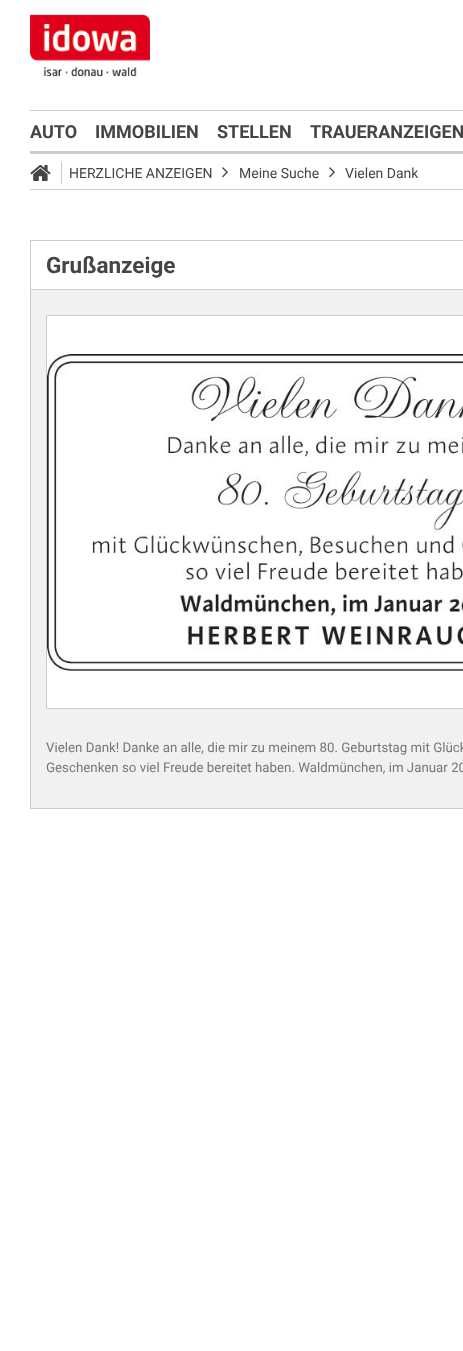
<!DOCTYPE html>
<meta charset="utf-8">
<style>body { margin: 0 } canvas { display: block }</style>
<canvas id="canvas" width="463" height="1351"></canvas>
<script type="module">
  const canvas = document.getElementById("canvas");
  const g = canvas.getContext("2d");
  g.miterLimit = 4;
  g.fontKerning = "normal";
  function drawText(s, x, y, [font, color]) {
    g.font = font;
    g.fillStyle = color;
    g.fillText(s, x, y);
  }
  function fillBox(x, y, w, h, color) {
    g.fillStyle = color;
    g.fillRect(x, y, w, h);
  }
  async function drawPicture(src, x, y, w, h) {
    const img = new Image();
    img.src = src;
    await img.decode();
    g.drawImage(img, x, y, w, h);
  }

  const s1 = ["bold 18px Roboto", "#454545"];
  const s2 = ["14px Roboto", "#454545"];
  const s3 = ["bold 22.5px Roboto", "#454545"];
  const s4 = ["13.3px Roboto", "#777777"];

  fillBox(0, 0, 463, 1351, "#FFFFFF");
  await drawPicture("pic1.png", 30, 14, 120, 63);
  fillBox(30, 110, 433, 1, "#CCCCCC");
  fillBox(30, 151, 433, 3, "#CCCCCC");
  drawText("AUTO", 30, 138, s1);
  drawText("IMMOBILIEN", 95, 138, s1);
  drawText("STELLEN", 217, 138, s1);
  drawText("TRAUERANZEIGEN", 310, 138, s1);
  fillBox(30, 189, 433, 1, "#CCCCCC");
  await drawPicture("pic2.png", 30, 165, 21, 16);
  fillBox(61, 162, 1, 22, "#CCCCCC");
  drawText("HERZLICHE ANZEIGEN", 69, 178, s2);
  await drawPicture("pic3.png", 222, 167, 6, 11);
  drawText("Meine Suche", 239, 178, s2);
  await drawPicture("pic3.png", 329, 167, 6, 11);
  drawText("Vielen Dank", 345, 178, s2);
  fillBox(31, 290, 432, 518, "#F1F1F1");
  g.strokeStyle = "#CCCCCC";
  g.strokeRect(30.5, 240.5, 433, 568);
  fillBox(31, 289, 432, 1, "#CCCCCC");
  drawText("Grußanzeige", 46, 273, s3);
  g.fillStyle = "#FFFFFF";
  g.beginPath();
  g.rect(46.5, 315.5, 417, 393);
  g.fill();
  g.stroke();
  await drawPicture("pic4.png", 47, 354, 416, 317);
  drawText("Vielen Dank! Danke an alle, die mir zu meinem 80. Geburtstag mit Glück", 46, 752, s4);
  drawText("Geschenken so viel Freude bereitet haben. Waldmünchen, im Januar 20", 46, 772, s4);
</script>
